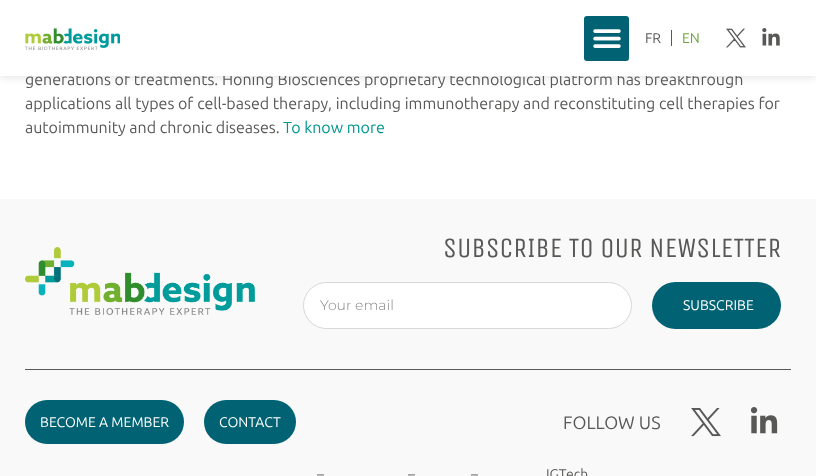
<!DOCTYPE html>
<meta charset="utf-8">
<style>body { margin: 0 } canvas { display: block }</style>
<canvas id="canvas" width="816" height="476"></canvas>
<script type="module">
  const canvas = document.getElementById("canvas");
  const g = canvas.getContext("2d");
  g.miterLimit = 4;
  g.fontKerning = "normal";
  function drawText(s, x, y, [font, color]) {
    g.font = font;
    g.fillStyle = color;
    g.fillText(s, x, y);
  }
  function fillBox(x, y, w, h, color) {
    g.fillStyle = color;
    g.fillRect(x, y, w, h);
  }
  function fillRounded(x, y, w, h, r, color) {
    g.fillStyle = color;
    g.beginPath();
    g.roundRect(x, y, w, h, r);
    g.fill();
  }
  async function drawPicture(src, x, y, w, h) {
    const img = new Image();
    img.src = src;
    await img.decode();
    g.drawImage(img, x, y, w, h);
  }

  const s1 = ["16px Ubuntu", "#585857"];
  const s2 = ["14px Ubuntu", "#585857"];
  const s3 = ["14px Ubuntu", "#6BA539"];
  const s4 = ["16px Ubuntu", "#00968F"];
  const s5 = ["28px Unica One", "#585857"];
  const s6 = ["300 14px Montserrat", "#868686"];
  const s7 = ["14px Ubuntu", "#FFFFFF"];
  const s8 = ["18px Ubuntu", "#585857"];

  fillBox(0, 0, 816, 476, "#FFFFFF");
  g.fillStyle = "rgba(0, 0, 0, 0.15)";
  g.filter = "blur(5px)";
  g.beginPath();
  g.rect(0, 0, 816, 76);
  g.fill();
  g.filter = "none";
  drawText("generations of treatments. Honing Biosciences proprietary technological platform has breakthrough", 25, 85, s1);
  fillBox(0, 0, 816, 76, "#FFFFFF");
  await drawPicture("pic1.png", 25, 28, 95, 22);
  fillRounded(584, 16, 45, 45, 3, "#006272");
  await drawPicture("pic2.png", 593, 29, 28, 19);
  drawText("FR", 645, 43, s2);
  fillBox(671, 30, 1, 16, "#585857");
  drawText("EN", 682, 43, s3);
  await drawPicture("pic3.png", 726, 28, 20, 20);
  await drawPicture("pic4.png", 762, 28, 18, 18);
  drawText("applications all types of cell-based therapy, including immunotherapy and reconstituting cell therapies for", 25, 109, s1);
  drawText("autoimmunity and chronic diseases.", 25, 133, s1);
  drawText("To know more", 283, 133, s4);
  fillBox(0, 199, 816, 277, "#F9F9F9");
  await drawPicture("pic5.png", 25, 247, 230, 68);
  drawText("SUBSCRIBE TO OUR NEWSLETTER", 443, 257, s5);
  g.fillStyle = "#FFFFFF";
  g.beginPath();
  g.roundRect(303.5, 282.5, 328, 46, 23);
  g.fill();
  g.strokeStyle = "#D8D8D8";
  g.stroke();
  drawText("Your email", 320, 310, s6);
  fillRounded(652, 282, 129, 47, 23.5, "#006272");
  drawText("SUBSCRIBE", 683, 310, s7);
  fillBox(25, 369, 766, 1, "#585857");
  fillRounded(25, 400, 159, 44, 22, "#006272");
  drawText("BECOME A MEMBER", 40, 427, s7);
  fillRounded(204, 400, 92, 44, 22, "#006272");
  drawText("CONTACT", 219, 427, s7);
  drawText("FOLLOW US", 563, 429, s8);
  await drawPicture("pic6.png", 691, 408, 30, 29);
  await drawPicture("pic7.png", 750, 407, 28, 27);
  drawText("–", 317, 479, s2);
  drawText("–", 408, 479, s2);
  drawText("–", 471, 479, s2);
  drawText("IGTech", 546, 479, s2);
</script>
